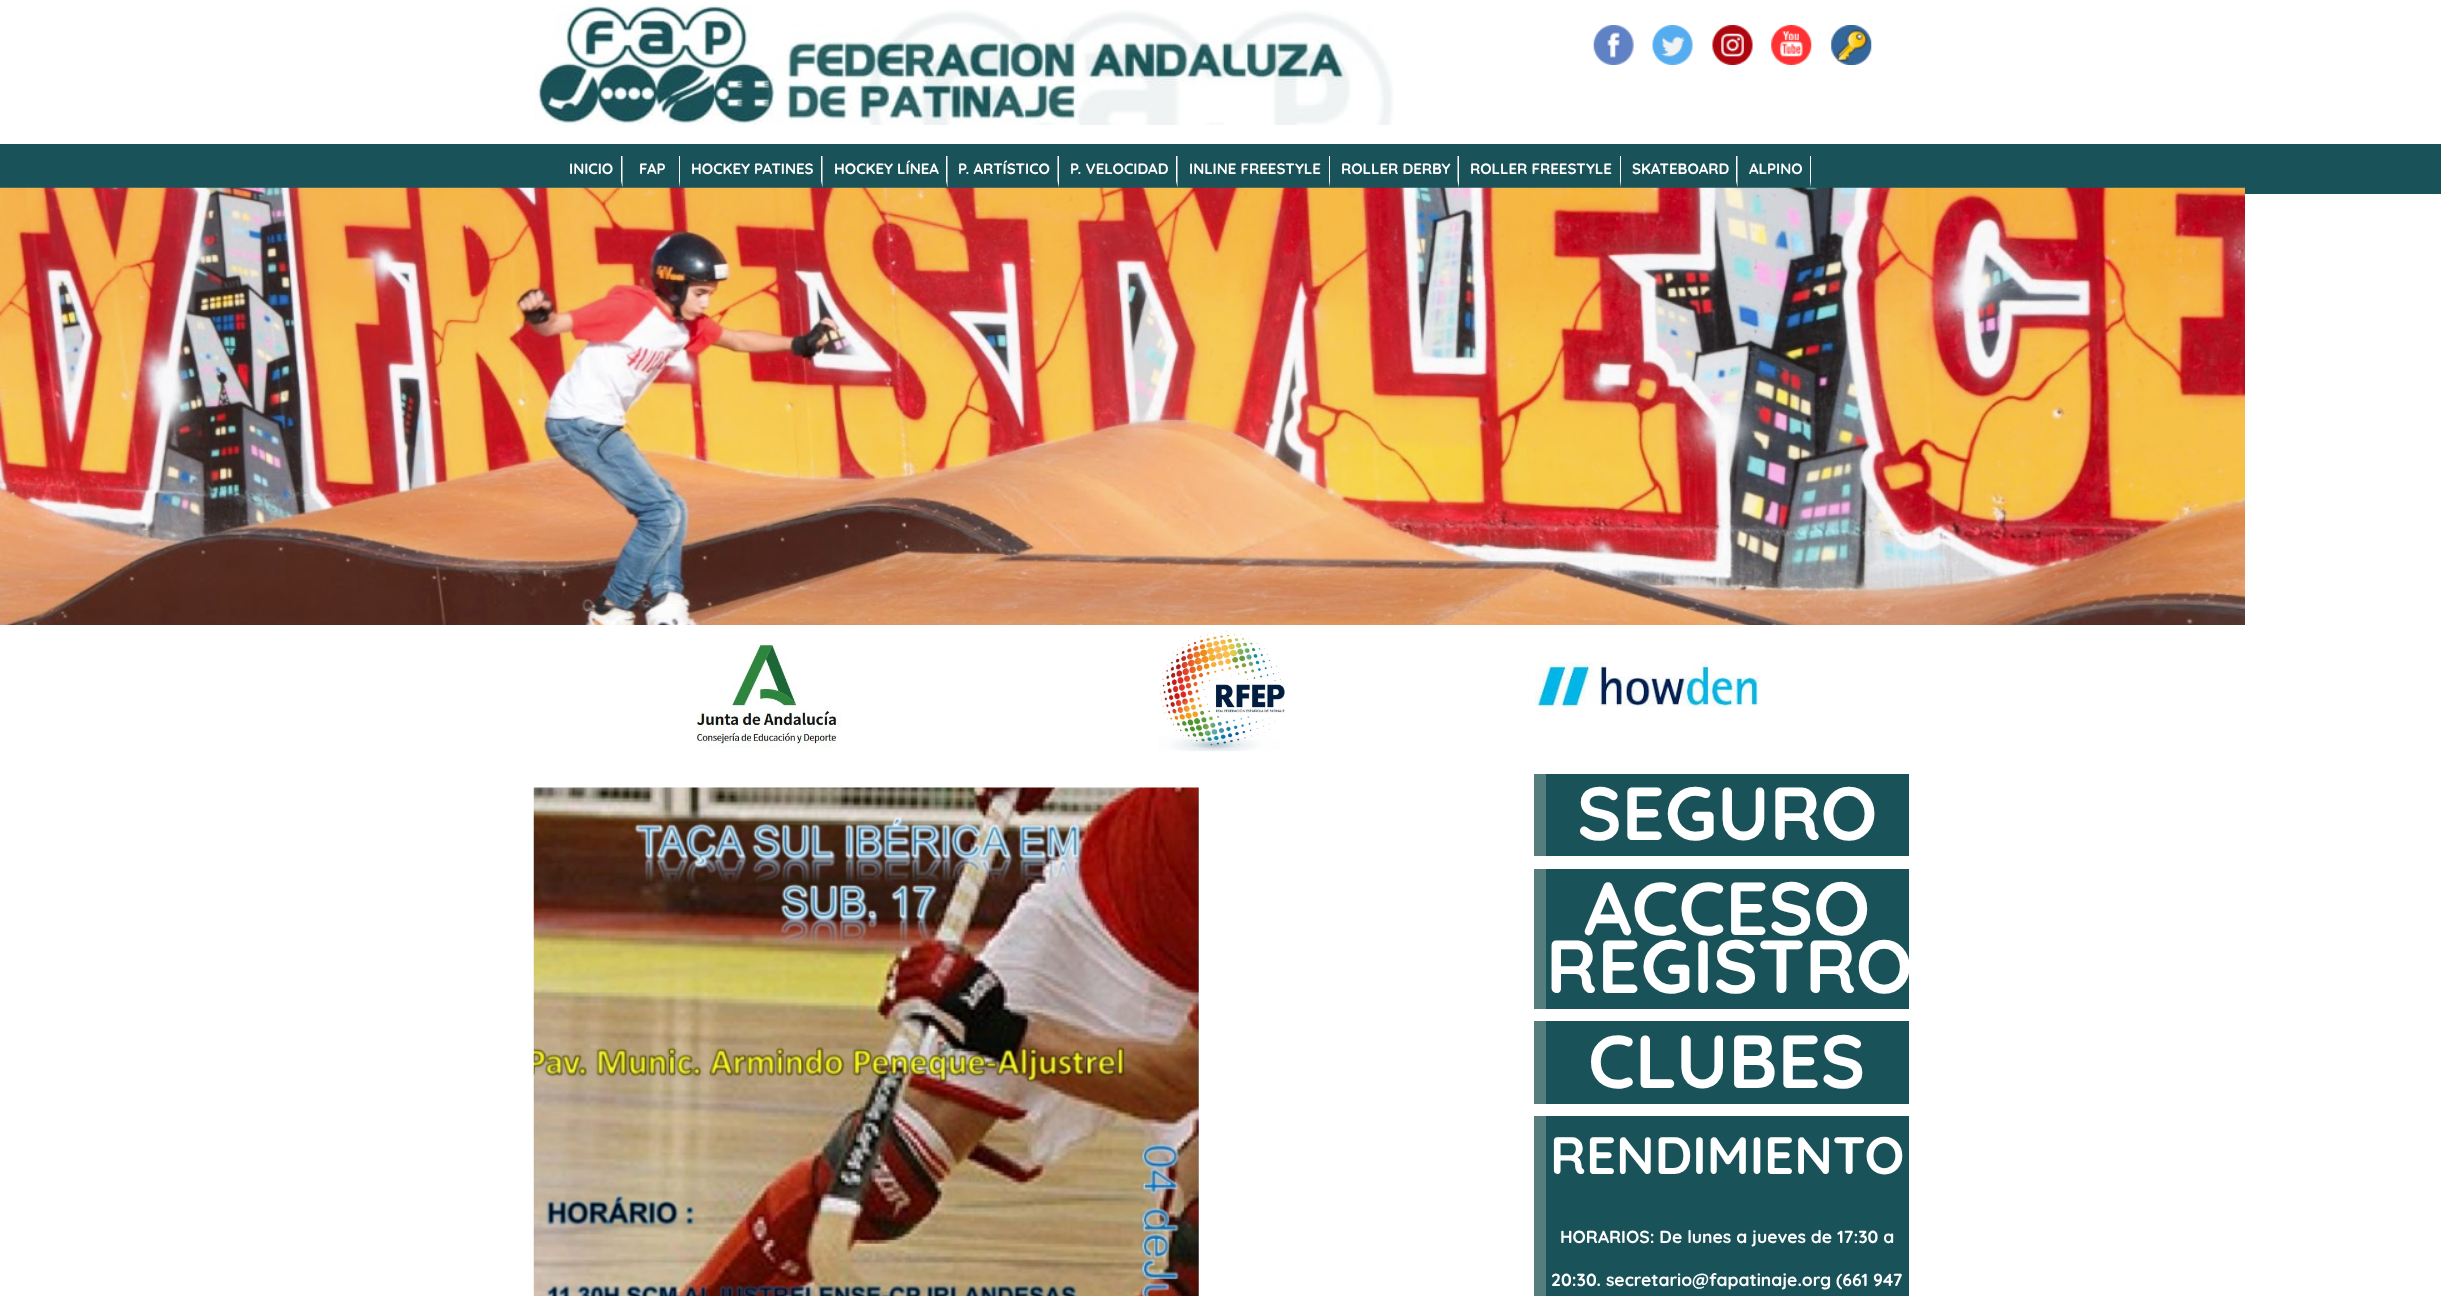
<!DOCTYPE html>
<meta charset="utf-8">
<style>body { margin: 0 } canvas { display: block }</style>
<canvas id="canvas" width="2441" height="1296"></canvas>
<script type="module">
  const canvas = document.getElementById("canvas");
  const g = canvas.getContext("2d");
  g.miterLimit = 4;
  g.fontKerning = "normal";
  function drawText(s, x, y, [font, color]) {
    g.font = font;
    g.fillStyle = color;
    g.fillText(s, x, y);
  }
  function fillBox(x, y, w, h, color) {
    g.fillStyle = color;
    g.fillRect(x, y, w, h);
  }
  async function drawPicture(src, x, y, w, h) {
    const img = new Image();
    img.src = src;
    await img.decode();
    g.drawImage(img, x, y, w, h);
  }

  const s1 = ["bold 15px Quicksand", "#FFFFFF"];
  const s2 = ["bold 75px Quicksand", "#FFFFFF"];
  const s3 = ["bold 52.5px Quicksand", "#FFFFFF"];
  const s4 = ["bold 17.5px Quicksand", "#FFFFFF"];

  fillBox(0, 0, 2441, 1296, "#FFFFFF");
  fillBox(0, 144, 2441, 50, "#1A5259");
  await drawPicture("pic1.png", 534, 5, 860, 120);
  await drawPicture("pic2.png", 1593, 25, 41, 40);
  await drawPicture("pic3.png", 1652, 25, 41, 40);
  await drawPicture("pic4.png", 1712, 25, 41, 40);
  await drawPicture("pic5.png", 1771, 25, 41, 40);
  await drawPicture("pic6.png", 1831, 25, 41, 40);
  g.fillStyle = "#FFFFFF";
  g.beginPath();
  g.moveTo(622.5, 156);
  g.lineTo(622.5, 187.5);
  g.lineTo(621, 181);
  g.lineTo(621, 156);
  g.closePath();
  g.fill();
  drawText("INICIO", 569, 174, s1);
  g.beginPath();
  g.moveTo(680, 156);
  g.lineTo(680, 187.5);
  g.lineTo(679, 181);
  g.lineTo(679, 156);
  g.closePath();
  g.fill();
  drawText("FAP", 639, 174, s1);
  g.beginPath();
  g.moveTo(822.5, 156);
  g.lineTo(822.5, 187.5);
  g.lineTo(821, 181);
  g.lineTo(821, 156);
  g.closePath();
  g.fill();
  drawText("HOCKEY PATINES", 691, 174, s1);
  g.beginPath();
  g.moveTo(947.5, 156);
  g.lineTo(947.5, 187.5);
  g.lineTo(946, 181);
  g.lineTo(946, 156);
  g.closePath();
  g.fill();
  drawText("HOCKEY LÍNEA", 834, 174, s1);
  g.beginPath();
  g.moveTo(1059, 156);
  g.lineTo(1059, 187.5);
  g.lineTo(1057.5, 181);
  g.lineTo(1057.5, 156);
  g.closePath();
  g.fill();
  drawText("P. ARTÍSTICO", 958, 174, s1);
  g.beginPath();
  g.moveTo(1177.5, 156);
  g.lineTo(1177.5, 187.5);
  g.lineTo(1176, 181);
  g.lineTo(1176, 156);
  g.closePath();
  g.fill();
  drawText("P. VELOCIDAD", 1070, 174, s1);
  g.beginPath();
  g.moveTo(1330, 156);
  g.lineTo(1330, 187.5);
  g.lineTo(1329, 181);
  g.lineTo(1329, 156);
  g.closePath();
  g.fill();
  drawText("INLINE FREESTYLE", 1189, 174, s1);
  g.beginPath();
  g.moveTo(1459, 156);
  g.lineTo(1459, 187.5);
  g.lineTo(1457.5, 181);
  g.lineTo(1457.5, 156);
  g.closePath();
  g.fill();
  drawText("ROLLER DERBY", 1341, 174, s1);
  g.beginPath();
  g.moveTo(1621, 156);
  g.lineTo(1621, 187.5);
  g.lineTo(1620, 181);
  g.lineTo(1620, 156);
  g.closePath();
  g.fill();
  drawText("ROLLER FREESTYLE", 1470, 174, s1);
  g.beginPath();
  g.moveTo(1737.5, 156);
  g.lineTo(1737.5, 187.5);
  g.lineTo(1736, 181);
  g.lineTo(1736, 156);
  g.closePath();
  g.fill();
  drawText("SKATEBOARD", 1632, 174, s1);
  g.beginPath();
  g.moveTo(1811, 156);
  g.lineTo(1811, 187.5);
  g.lineTo(1810, 181);
  g.lineTo(1810, 156);
  g.closePath();
  g.fill();
  drawText("ALPINO", 1749, 174, s1);
  await drawPicture("pic7.png", 0, 187, 2245, 438);
  await drawPicture("pic8.png", 696, 643, 146, 105);
  await drawPicture("pic9.png", 1158, 630, 127, 122);
  await drawPicture("pic10.png", 1535, 662, 225, 45);
  await drawPicture("pic11.png", 533, 787, 666, 509);
  fillBox(1546, 774, 363, 82, "#1A5259");
  fillBox(1534, 774, 12, 82, "#557D7D");
  drawText("SEGURO", 1577, 840, s2);
  fillBox(1546, 869, 363, 140, "#1A5259");
  fillBox(1534, 869, 12, 140, "#557D7D");
  drawText("ACCESO", 1584, 935, s2);
  g.save();
  g.beginPath();
  g.rect(1534, 749, 375, 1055);
  g.clip();
  drawText("REGISTRO", 1546, 993, s2);
  g.restore();
  fillBox(1546, 1021, 363, 83, "#1A5259");
  fillBox(1534, 1021, 12, 83, "#557D7D");
  drawText("CLUBES", 1588, 1088, s2);
  fillBox(1546, 1116, 363, 180, "#1A5259");
  fillBox(1534, 1116, 12, 180, "#557D7D");
  drawText("RENDIMIENTO", 1550, 1174, s3);
  drawText("HORARIOS: De lunes a jueves de 17:30 a", 1560, 1243, s4);
  drawText("20:30. secretario@fapatinaje.org (661 947", 1551, 1286, s4);
</script>
